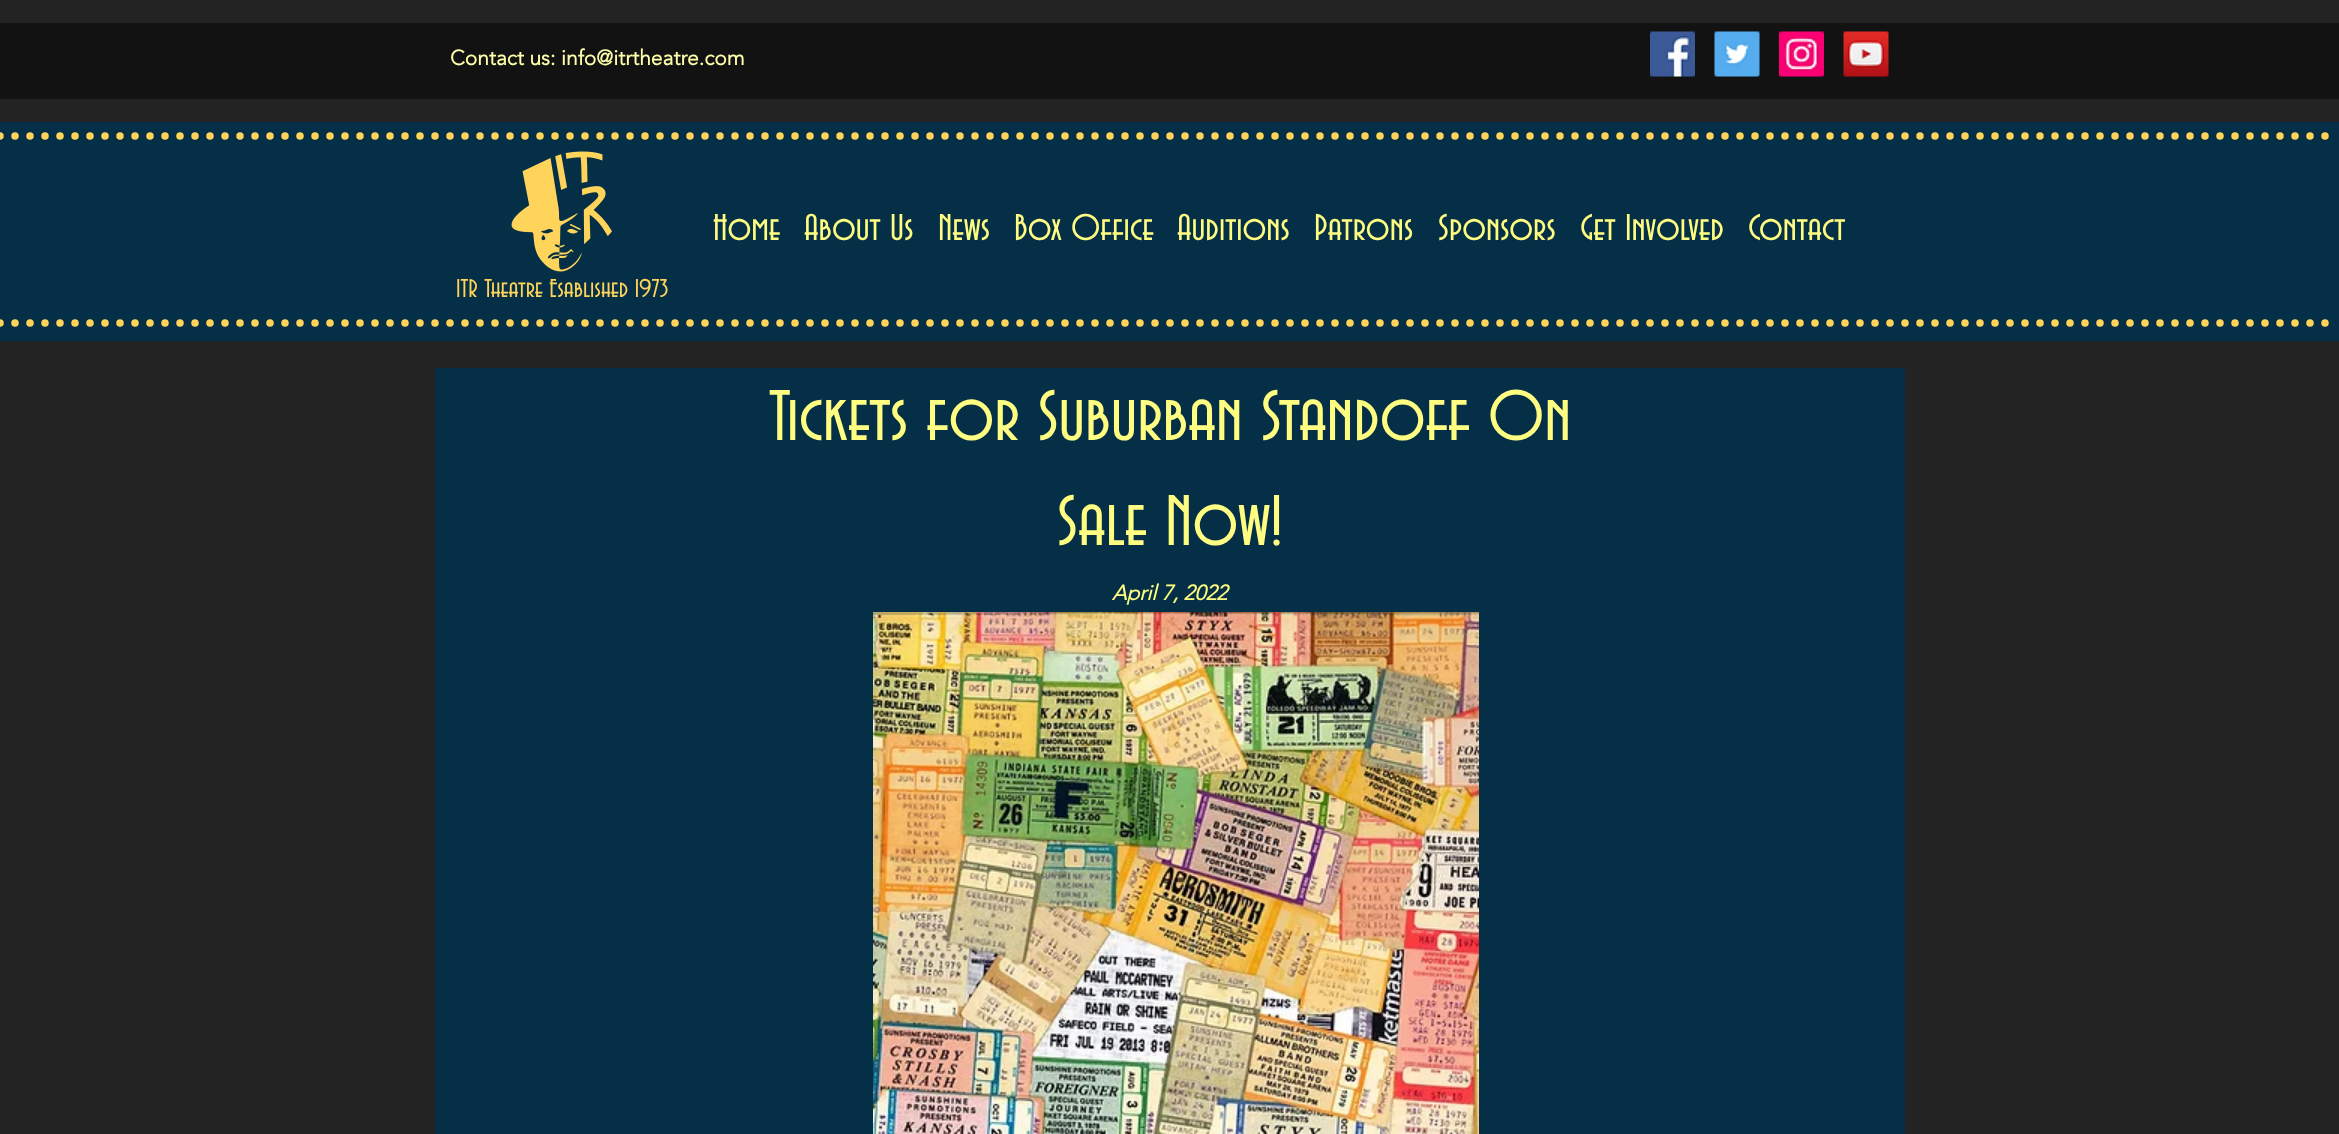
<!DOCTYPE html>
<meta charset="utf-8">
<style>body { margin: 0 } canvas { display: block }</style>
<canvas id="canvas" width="2339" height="1134"></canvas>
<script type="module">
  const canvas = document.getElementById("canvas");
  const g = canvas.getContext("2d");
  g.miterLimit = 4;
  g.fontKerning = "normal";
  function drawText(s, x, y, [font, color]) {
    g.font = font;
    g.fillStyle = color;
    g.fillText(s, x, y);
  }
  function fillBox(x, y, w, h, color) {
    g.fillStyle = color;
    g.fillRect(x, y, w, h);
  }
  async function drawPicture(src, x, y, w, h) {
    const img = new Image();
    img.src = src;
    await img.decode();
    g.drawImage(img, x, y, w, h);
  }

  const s1 = ["bold 21px 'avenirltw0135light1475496'", "#FFFEAB"];
  const s2 = ["39px 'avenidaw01'", "#FFFD81"];
  const s3 = ["27px 'avenidaw01'", "#FFD45A"];
  const s4 = ["75px 'avenidaw01'", "#FFFD81"];
  const s5 = ["italic bold 21px 'avenirltw0135light1475496'", "#FFFD81"];

  fillBox(0, 0, 2339, 1134, "#242323");
  fillBox(0, 23, 2339, 76, "#121212");
  drawText("Contact us: info@itrtheatre.com", 450, 65, s1);
  await drawPicture("pic1.png", 1650, 31, 45, 46);
  await drawPicture("pic2.png", 1714, 31, 46, 46);
  await drawPicture("pic3.png", 1779, 31, 45, 46);
  await drawPicture("pic4.png", 1843, 31, 46, 46);
  fillBox(0, 122, 2339, 219, "#052F47");
  g.beginPath();
  g.moveTo(0, 136);
  g.lineTo(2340, 136);
  g.strokeStyle = "#FFD45A";
  g.lineWidth = 7.5;
  g.lineCap = "round";
  g.setLineDash([0, 15]);
  g.stroke();
  await drawPicture("pic5.png", 511, 151, 101, 121);
  drawText("Home", 713, 240, s2);
  drawText("About Us", 804, 240, s2);
  drawText("News", 938, 240, s2);
  drawText("Box Office", 1014, 240, s2);
  drawText("Auditions", 1177, 240, s2);
  drawText("Patrons", 1314, 240, s2);
  drawText("Sponsors", 1438, 240, s2);
  drawText("Get Involved", 1580, 240, s2);
  drawText("Contact", 1748, 240, s2);
  drawText("ITR Theatre Esablished 1973", 456, 297, s3);
  g.beginPath();
  g.moveTo(0, 323);
  g.lineTo(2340, 323);
  g.stroke();
  fillBox(435, 368, 1470, 766, "#052F47");
  drawText("Tickets for Suburban Standoff On", 769, 440, s4);
  drawText("Sale Now!", 1057, 545, s4);
  drawText("April 7, 2022", 1112, 600, s5);
  await drawPicture("pic6.png", 873, 612, 606, 522);
</script>
